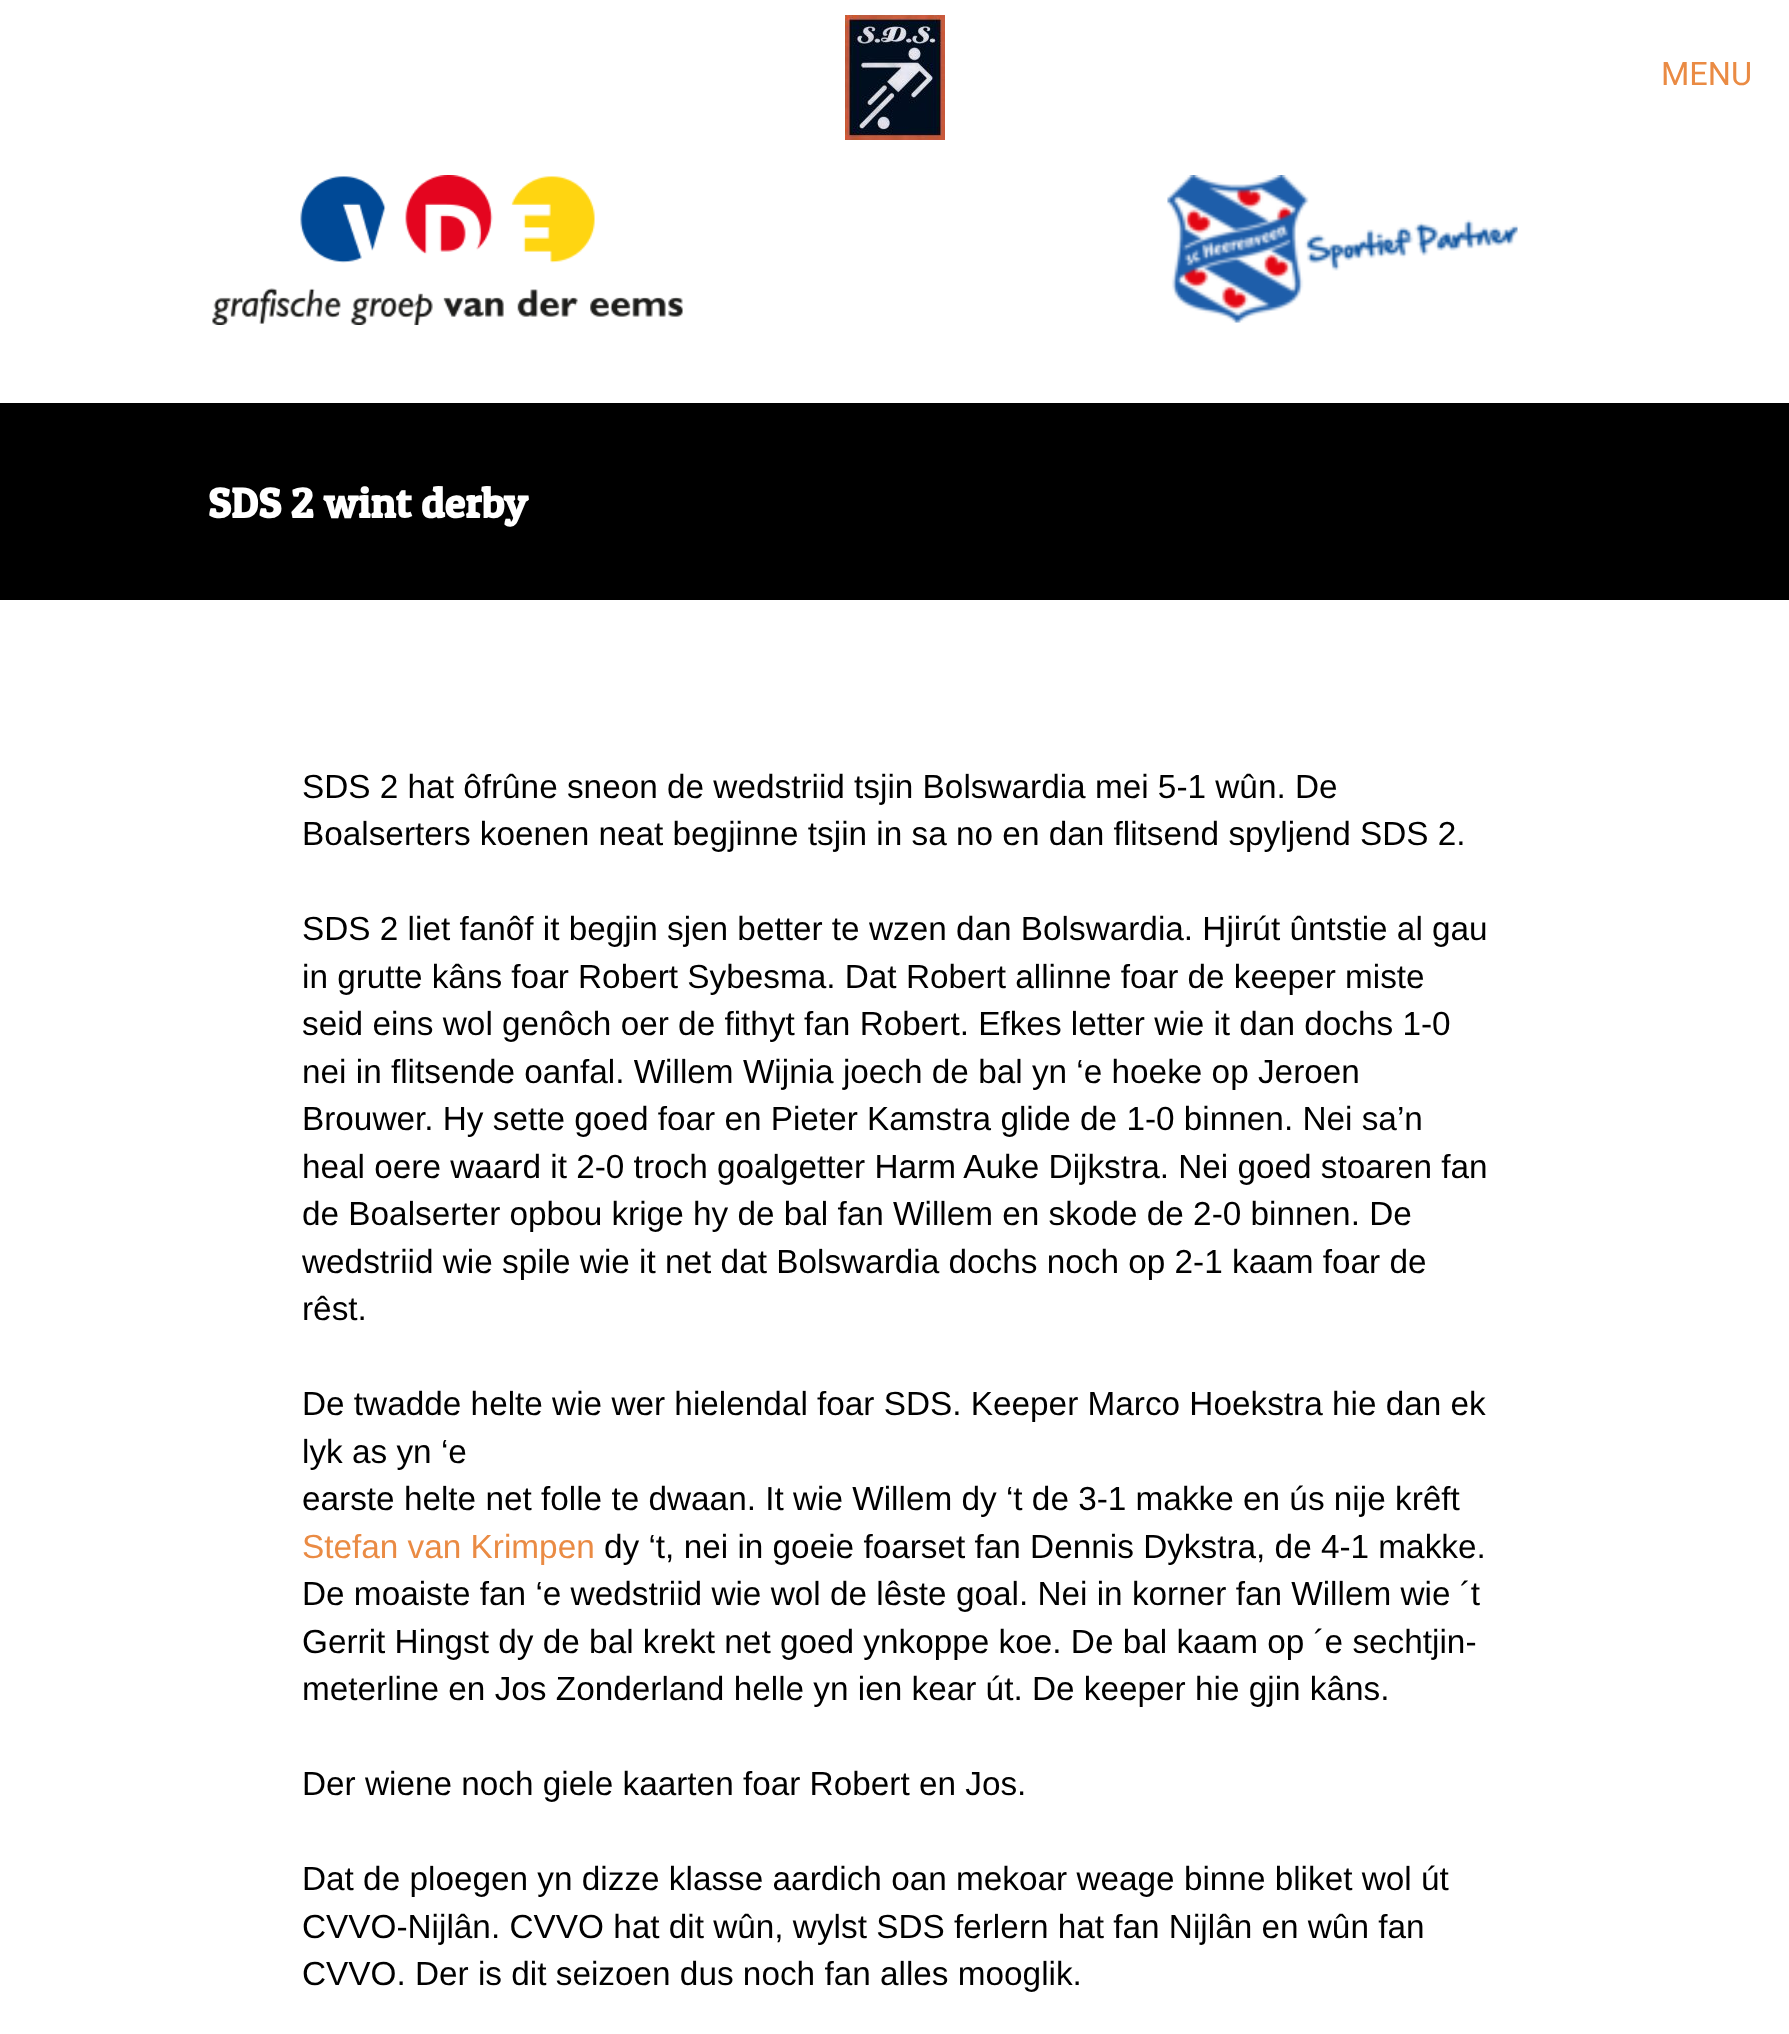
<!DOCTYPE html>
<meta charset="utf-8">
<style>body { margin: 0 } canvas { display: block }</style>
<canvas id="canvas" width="1789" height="2034"></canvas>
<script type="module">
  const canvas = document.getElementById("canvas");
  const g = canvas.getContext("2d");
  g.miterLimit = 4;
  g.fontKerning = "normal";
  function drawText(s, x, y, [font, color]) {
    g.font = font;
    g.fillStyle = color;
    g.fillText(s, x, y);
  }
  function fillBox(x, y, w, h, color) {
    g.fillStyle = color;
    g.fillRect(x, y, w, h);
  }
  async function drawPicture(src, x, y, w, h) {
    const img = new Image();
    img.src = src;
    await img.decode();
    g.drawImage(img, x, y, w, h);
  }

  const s1 = ["32.5px Roboto", "#EA8B44"];
  const s2 = ["bold 42.5px Patua One", "#FFFFFF"];
  const s3 = ["33.35px Liberation Sans", "#000000"];
  const s4 = ["33.35px Liberation Sans", "#EA8B44"];

  fillBox(0, 0, 1789, 2034, "#FFFFFF");
  await drawPicture("pic1.png", 845, 15, 100, 125);
  drawText("MENU", 1661, 85, s1);
  await drawPicture("pic2.png", 212, 175, 471, 150);
  await drawPicture("pic3.png", 1167, 175, 351, 148);
  fillBox(0, 403, 1789, 197, "#000000");
  drawText("SDS 2 wint derby", 208, 518, s2);
  drawText("SDS 2 hat ôfrûne sneon de wedstriid tsjin Bolswardia mei 5-1 wûn. De", 302, 798, s3);
  drawText("Boalserters koenen neat begjinne tsjin in sa no en dan flitsend spyljend SDS 2.", 302, 845, s3);
  drawText("SDS 2 liet fanôf it begjin sjen better te wzen dan Bolswardia. Hjirút ûntstie al gau", 302, 940, s3);
  drawText("in grutte kâns foar Robert Sybesma. Dat Robert allinne foar de keeper miste", 302, 988, s3);
  drawText("seid eins wol genôch oer de fithyt fan Robert. Efkes letter wie it dan dochs 1-0", 302, 1035, s3);
  drawText("nei in flitsende oanfal. Willem Wijnia joech de bal yn ‘e hoeke op Jeroen", 302, 1083, s3);
  drawText("Brouwer. Hy sette goed foar en Pieter Kamstra glide de 1-0 binnen. Nei sa’n", 302, 1130, s3);
  drawText("heal oere waard it 2-0 troch goalgetter Harm Auke Dijkstra. Nei goed stoaren fan", 302, 1178, s3);
  drawText("de Boalserter opbou krige hy de bal fan Willem en skode de 2-0 binnen. De", 302, 1225, s3);
  drawText("wedstriid wie spile wie it net dat Bolswardia dochs noch op 2-1 kaam foar de", 302, 1273, s3);
  drawText("rêst.", 302, 1320, s3);
  drawText("De twadde helte wie wer hielendal foar SDS. Keeper Marco Hoekstra hie dan ek", 302, 1415, s3);
  drawText("lyk as yn ‘e", 302, 1463, s3);
  drawText("earste helte net folle te dwaan. It wie Willem dy ‘t de 3-1 makke en ús nije krêft", 302, 1510, s3);
  drawText("Stefan van Krimpen", 302, 1558, s4);
  drawText("dy ‘t, nei in goeie foarset fan Dennis Dykstra, de 4-1 makke.", 604, 1558, s3);
  drawText("De moaiste fan ‘e wedstriid wie wol de lêste goal. Nei in korner fan Willem wie ´t", 302, 1605, s3);
  drawText("Gerrit Hingst dy de bal krekt net goed ynkoppe koe. De bal kaam op ´e sechtjin-", 302, 1653, s3);
  drawText("meterline en Jos Zonderland helle yn ien kear út. De keeper hie gjin kâns.", 302, 1700, s3);
  drawText("Der wiene noch giele kaarten foar Robert en Jos.", 302, 1795, s3);
  drawText("Dat de ploegen yn dizze klasse aardich oan mekoar weage binne bliket wol út", 302, 1890, s3);
  drawText("CVVO-Nijlân. CVVO hat dit wûn, wylst SDS ferlern hat fan Nijlân en wûn fan", 302, 1938, s3);
  drawText("CVVO. Der is dit seizoen dus noch fan alles mooglik.", 302, 1985, s3);
</script>
